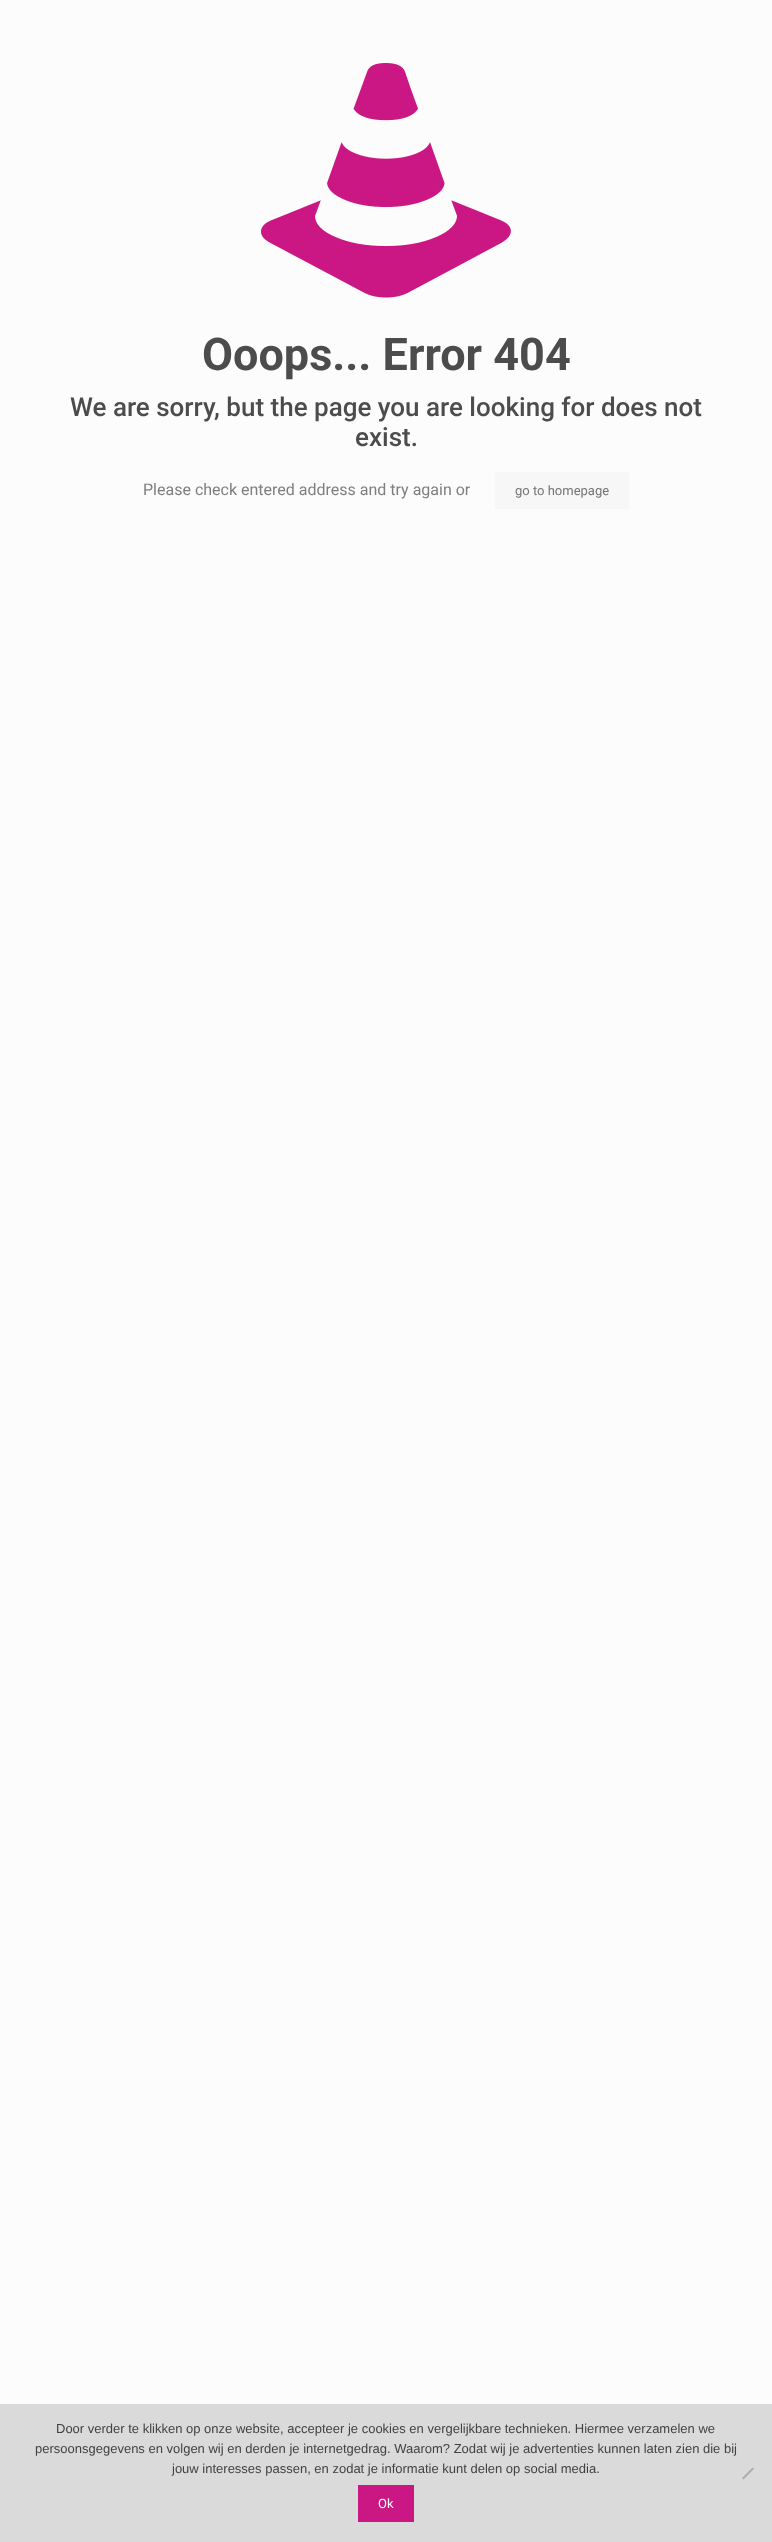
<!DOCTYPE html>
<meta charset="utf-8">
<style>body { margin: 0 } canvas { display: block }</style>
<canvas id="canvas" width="772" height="2542"></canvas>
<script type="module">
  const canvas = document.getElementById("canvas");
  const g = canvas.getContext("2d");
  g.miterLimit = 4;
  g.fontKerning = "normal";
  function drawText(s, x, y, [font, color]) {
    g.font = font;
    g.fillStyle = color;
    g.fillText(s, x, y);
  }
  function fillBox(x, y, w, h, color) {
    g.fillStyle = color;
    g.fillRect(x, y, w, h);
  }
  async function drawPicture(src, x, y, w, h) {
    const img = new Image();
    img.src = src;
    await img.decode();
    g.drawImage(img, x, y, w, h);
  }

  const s1 = ["bold 45px Roboto", "#4C4C4C"];
  const s2 = ["500 26px Roboto", "#4C4C4C"];
  const s3 = ["16px Roboto", "#7E7E7E"];
  const s4 = ["13px Roboto", "#747474"];
  const s5 = ["13px Liberation Sans", "#424242"];
  const s6 = ["13px Roboto", "#FFFFFF"];

  fillBox(0, 0, 772, 2542, "#FCFCFC");
  await drawPicture("pic1.png", 261, 63, 250, 235);
  drawText("Ooops... Error 404", 202, 370, s1);
  drawText("We are sorry, but the page you are looking for does not", 70, 416, s2);
  drawText("exist.", 355, 446, s2);
  drawText("Please check entered address and try again or", 143, 495, s3);
  fillBox(495, 472, 134, 37, "#F7F7F7");
  drawText("go to homepage", 515, 495, s4);
  fillBox(0, 2404, 772, 138, "#DADADA");
  drawText("Door verder te klikken op onze website, accepteer je cookies en vergelijkbare technieken. Hiermee verzamelen we", 56, 2433, s5);
  drawText("persoonsgegevens en volgen wij en derden je internetgedrag. Waarom? Zodat wij je advertenties kunnen laten zien die bij", 35, 2453, s5);
  drawText("jouw interesses passen, en zodat je informatie kunt delen op social media.", 172, 2473, s5);
  g.fillStyle = "#ADADAD";
  g.beginPath();
  g.moveTo(752.5, 2467.5);
  g.lineTo(754, 2469);
  g.lineTo(743.5, 2479.5);
  g.lineTo(742, 2478);
  g.closePath();
  g.fill();
  fillBox(358, 2485, 56, 37, "#CA1783");
  drawText("Ok", 378, 2508, s6);
</script>
